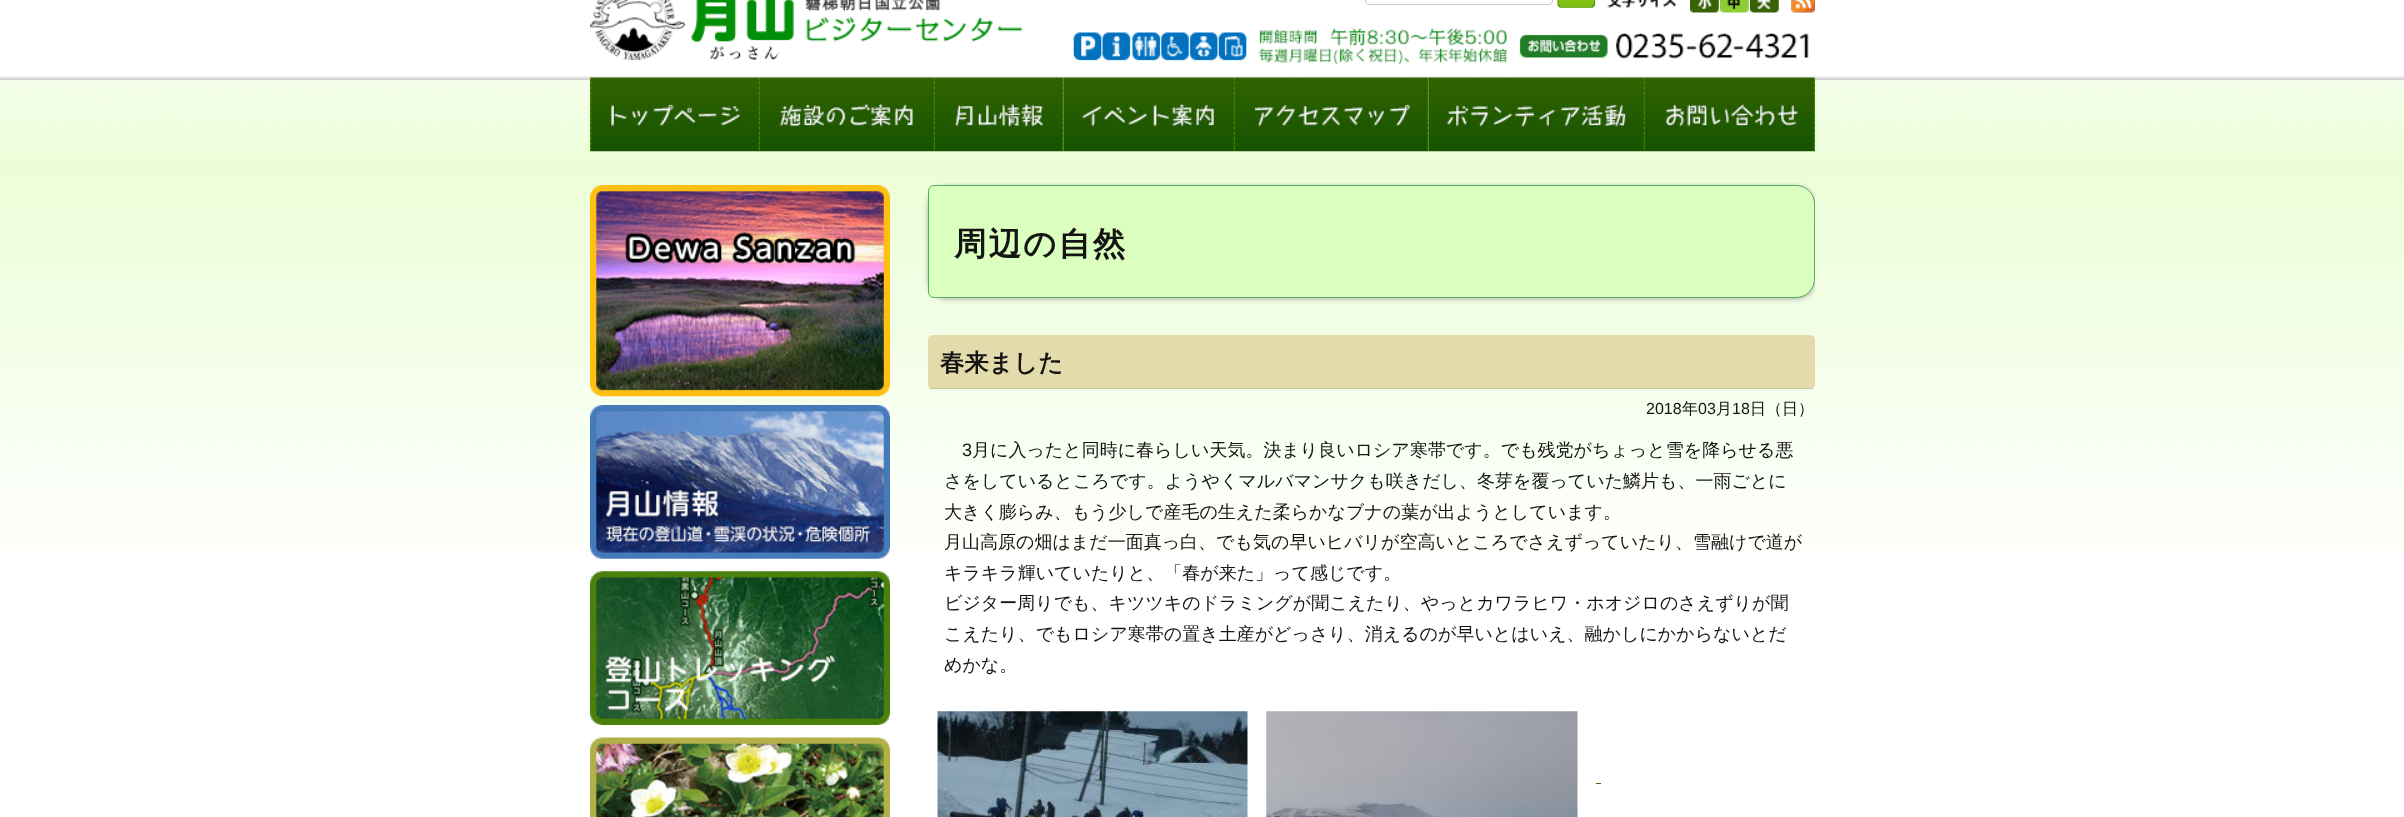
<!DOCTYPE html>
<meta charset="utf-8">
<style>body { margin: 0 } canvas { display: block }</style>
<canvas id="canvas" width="2404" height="817"></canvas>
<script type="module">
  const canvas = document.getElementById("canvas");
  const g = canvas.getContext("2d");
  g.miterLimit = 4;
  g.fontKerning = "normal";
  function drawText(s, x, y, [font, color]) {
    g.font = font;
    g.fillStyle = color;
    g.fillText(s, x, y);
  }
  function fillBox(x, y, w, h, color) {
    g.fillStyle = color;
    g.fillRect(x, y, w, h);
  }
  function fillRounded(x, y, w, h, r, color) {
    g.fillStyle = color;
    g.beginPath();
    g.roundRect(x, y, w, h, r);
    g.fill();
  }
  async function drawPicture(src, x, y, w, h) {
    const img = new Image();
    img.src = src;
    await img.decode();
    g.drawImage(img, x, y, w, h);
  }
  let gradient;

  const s1 = ["bold 32.5px WenQuanYi Zen Hei", "#141412"];
  const s2 = ["bold 24.25px WenQuanYi Zen Hei", "#141412"];
  const s3 = ["16px Liberation Sans", "#141412"];
  const s4 = ["500 16px WenQuanYi Zen Hei", "#141412"];
  const s5 = ["18px Liberation Sans", "#141412"];
  const s6 = ["500 18px WenQuanYi Zen Hei", "#141412"];

  fillBox(0, 0, 2404, 817, "#FFFFFF");
  await drawPicture("pic1.png", 0, 75, 2404, 85);
  await drawPicture("pic2.png", 590, 0, 433, 60);
  g.beginPath();
  g.roundRect(1365.5, -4.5, 187, 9, 3.5);
  g.strokeStyle = "#CCCCCC";
  g.stroke();
  gradient = g.createLinearGradient(1559, -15, 1559, 6.2);
  gradient.addColorStop(0, "#B1E362");
  gradient.addColorStop(0.5, "#A2D847");
  gradient.addColorStop(0.5, "#8ACB1F");
  gradient.addColorStop(1, "#7DBF0D");
  g.fillStyle = gradient;
  g.fillRect(1558, 0, 37, 6);
  g.save();
  g.beginPath();
  g.roundRect(1558, -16, 37, 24, 4);
  g.clip();
  gradient = g.createLinearGradient(1559, 6.2, 1559, 28);
  gradient.addColorStop(0, "#B1E362");
  gradient.addColorStop(0.5, "#A2D847");
  gradient.addColorStop(0.5, "#8ACB1F");
  gradient.addColorStop(1, "#7DBF0D");
  g.fillStyle = gradient;
  g.fillRect(1558, 6, 37, 2);
  g.restore();
  g.beginPath();
  g.moveTo(1593.5, 6);
  g.bezierCurveTo(1593, 6.5, 1592, 7, 1591, 7);
  g.lineTo(1561, 7);
  g.bezierCurveTo(1560.5, 7, 1559.5, 6.5, 1559, 6);
  g.strokeStyle = "#568A03";
  g.lineWidth = 1.2;
  g.stroke();
  g.beginPath();
  g.moveTo(1559, 6);
  g.bezierCurveTo(1558.5, 5.5, 1558, 4.5, 1558, 4);
  g.lineTo(1558, -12.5);
  g.bezierCurveTo(1558, -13.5, 1558.5, -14, 1559, -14.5);
  g.bezierCurveTo(1559.5, -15.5, 1560.5, -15.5, 1561, -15.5);
  g.lineTo(1591, -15.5);
  g.bezierCurveTo(1592, -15.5, 1593, -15.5, 1593.5, -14.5);
  g.bezierCurveTo(1594, -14, 1594.5, -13.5, 1594.5, -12.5);
  g.lineTo(1594.5, 3.5);
  g.bezierCurveTo(1594.5, 4.5, 1594, 5.5, 1593.5, 6);
  g.strokeStyle = "#5B9400";
  g.stroke();
  await drawPicture("pic3.png", 1607, 0, 70, 8);
  await drawPicture("pic4.png", 1690, 0, 29, 13);
  await drawPicture("pic5.png", 1720, 0, 29, 13);
  await drawPicture("pic6.png", 1750, 0, 29, 13);
  await drawPicture("pic7.png", 1791, 0, 24, 13);
  await drawPicture("pic8.png", 1073, 28, 736, 36);
  await drawPicture("pic9.png", 590, 77, 170, 75);
  await drawPicture("pic10.png", 760, 77, 175, 75);
  await drawPicture("pic11.png", 935, 77, 129, 75);
  await drawPicture("pic12.png", 1063, 77, 172, 75);
  await drawPicture("pic13.png", 1235, 77, 194, 75);
  await drawPicture("pic14.png", 1428, 77, 217, 75);
  await drawPicture("pic15.png", 1645, 77, 170, 75);
  await drawPicture("pic16.png", 0, 160, 2404, 390);
  await drawPicture("pic17.png", 590, 185, 300, 212);
  await drawPicture("pic18.png", 590, 405, 300, 154);
  await drawPicture("pic19.png", 590, 571, 300, 154);
  await drawPicture("pic20.png", 590, 737, 300, 80);
  g.save();
  g.beginPath();
  g.rect(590, 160, 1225, 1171);
  g.clip();
  g.fillStyle = "rgba(0, 0, 0, 0.3)";
  g.filter = "blur(2.5px)";
  g.beginPath();
  g.roundRect(928, 186, 887, 113, 19);
  g.fill();
  g.filter = "none";
  g.restore();
  g.fillStyle = "#DBFFBF";
  g.beginPath();
  g.roundRect(928.5, 185.5, 886, 112, [5.5, 18.5, 18.5, 5.5]);
  g.fill();
  g.strokeStyle = "#5AAD6D";
  g.lineWidth = 1;
  g.stroke();
  g.letterSpacing = "2px";
  drawText("周辺の自然", 954, 255, s1);
  fillRounded(928, 335, 887, 54, 5, "#E4DBAC");
  fillBox(930, 388, 883, 1, "#CCC499");
  g.letterSpacing = "0px";
  drawText("春来ました", 940, 371, s2);
  drawText("2018", 1646, 414, s3);
  drawText("年", 1682, 414, s4);
  drawText("03", 1698, 414, s3);
  drawText("月", 1716, 414, s4);
  drawText("18", 1732, 414, s3);
  drawText("日（日）", 1750, 414, s4);
  drawText("3", 962, 456, s5);
  drawText("月に入ったと同時に春らしい天気。決まり良いロシア寒帯です。でも残党がちょっと雪を降らせる悪", 972, 456, s6);
  drawText("さをしているところです。ようやくマルバマンサクも咲きだし、冬芽を覆っていた鱗片も、一雨ごとに", 944, 487, s6);
  drawText("大きく膨らみ、もう少しで産毛の生えた柔らかなブナの葉が出ようとしています。", 944, 518, s6);
  drawText("月山高原の畑はまだ一面真っ白、でも気の早いヒバリが空高いところでさえずっていたり、雪融けで道が", 944, 548, s6);
  drawText("キラキラ輝いていたりと、「春が来た」って感じです。", 944, 579, s6);
  drawText("ビジター周りでも、キツツキのドラミングが聞こえたり、やっとカワラヒワ・ホオジロのさえずりが聞", 944, 609, s6);
  drawText("こえたり、でもロシア寒帯の置き土産がどっさり、消えるのが早いとはいえ、融かしにかからないとだ", 944, 640, s6);
  drawText("めかな。", 944, 671, s6);
  await drawPicture("pic21.png", 937, 711, 311, 106);
  await drawPicture("pic22.png", 1266, 711, 312, 106);
  fillBox(1596, 783, 5, 1, "#326C11");
</script>
